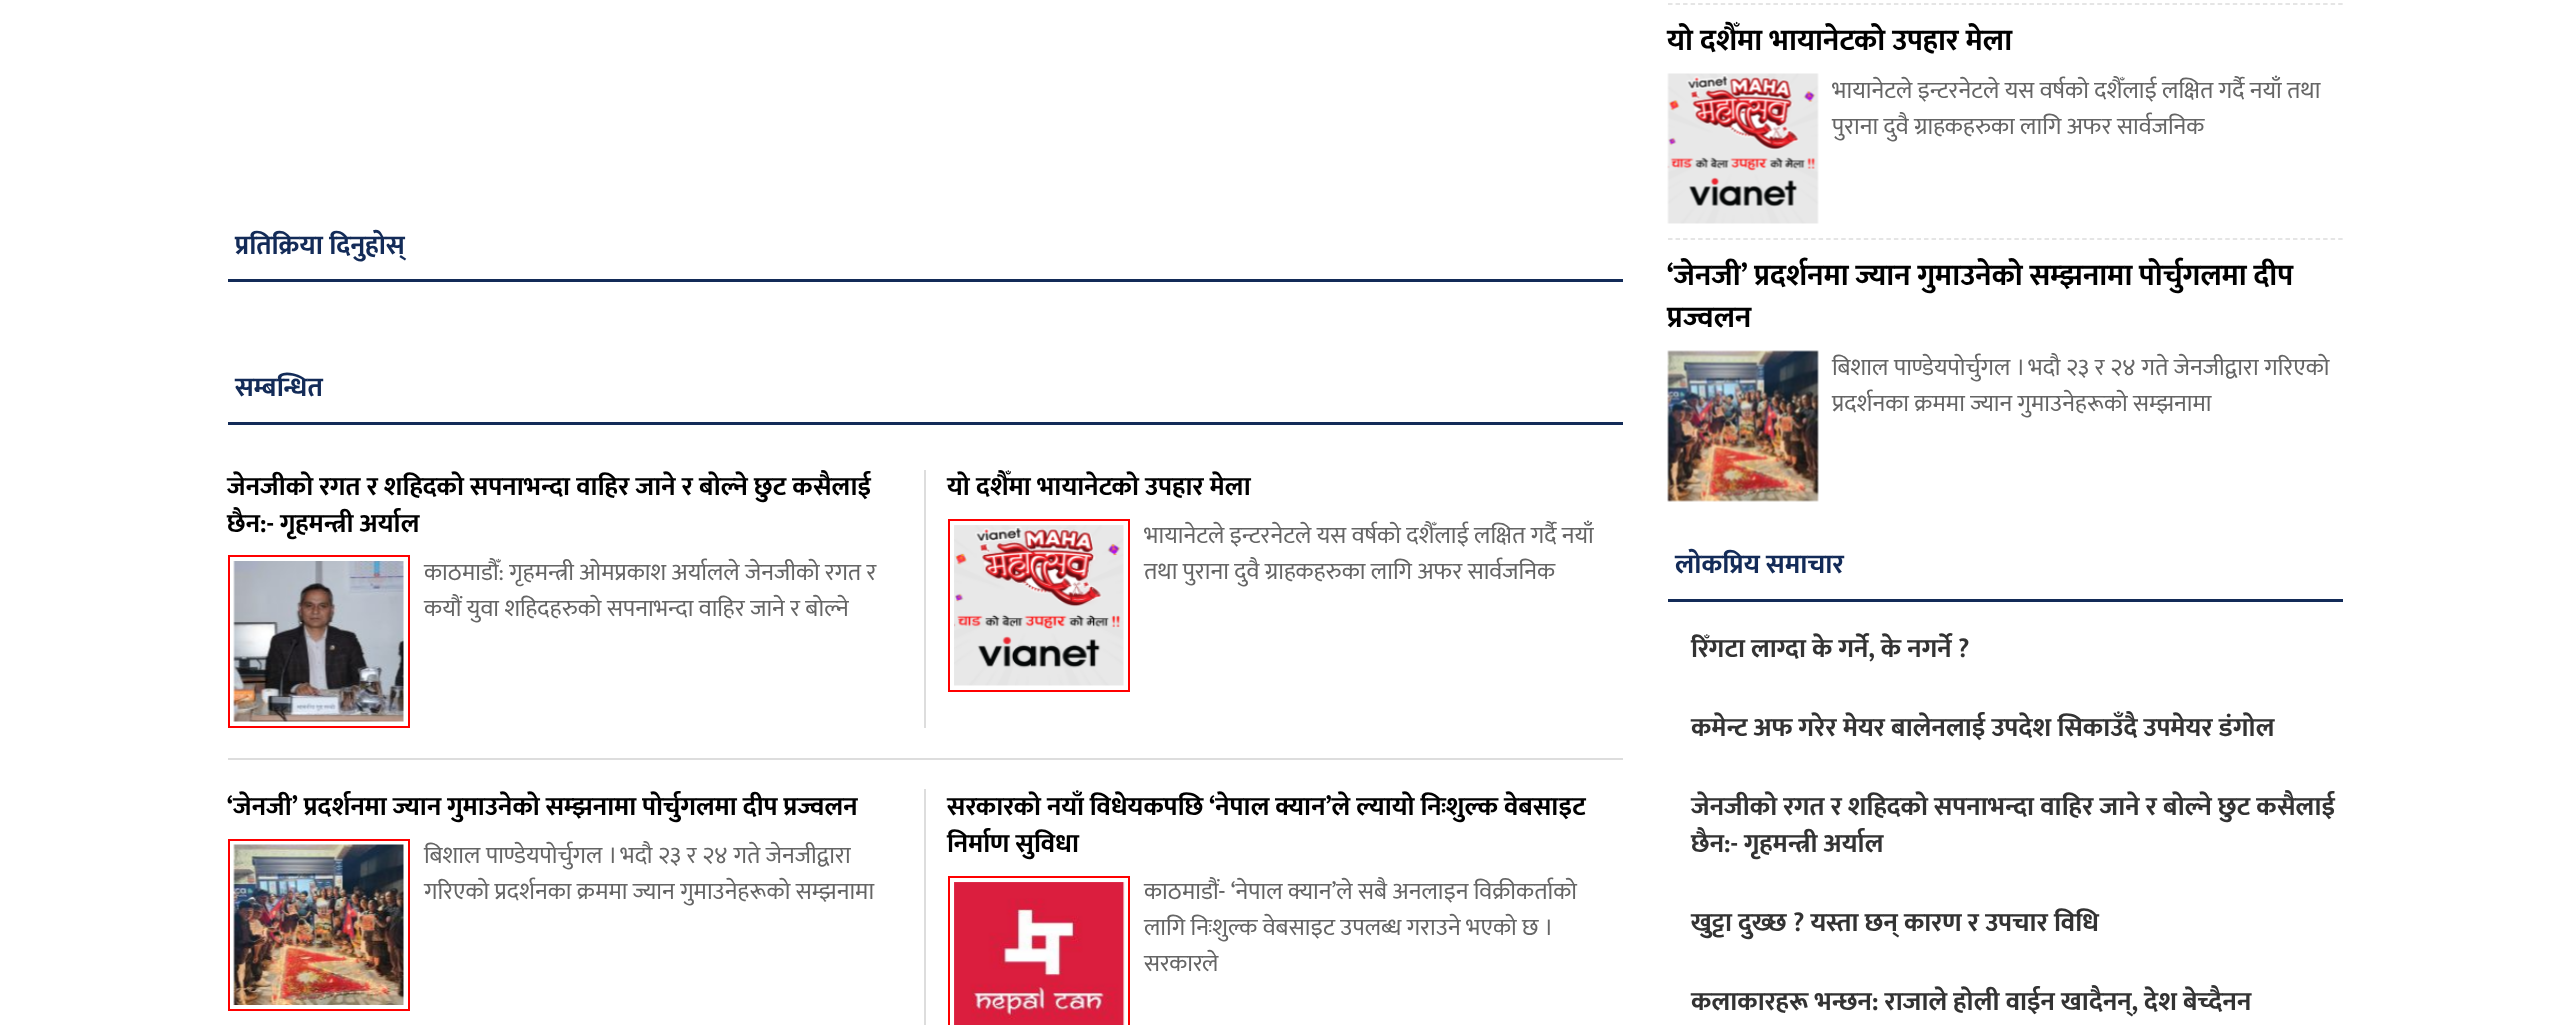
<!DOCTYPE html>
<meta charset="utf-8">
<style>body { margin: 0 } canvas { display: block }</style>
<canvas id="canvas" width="2569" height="1025"></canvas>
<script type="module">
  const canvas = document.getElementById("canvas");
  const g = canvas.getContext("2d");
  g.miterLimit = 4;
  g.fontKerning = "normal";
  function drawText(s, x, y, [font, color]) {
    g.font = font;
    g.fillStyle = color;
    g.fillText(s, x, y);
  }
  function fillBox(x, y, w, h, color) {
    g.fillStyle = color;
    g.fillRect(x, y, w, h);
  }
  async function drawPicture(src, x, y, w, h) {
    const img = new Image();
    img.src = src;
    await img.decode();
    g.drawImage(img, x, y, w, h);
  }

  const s1 = ["bold 27px Mukta", "#132B58"];
  const s2 = ["bold 26.4px Mukta", "#000000"];
  const s3 = ["24px Mukta", "#656565"];
  const s4 = ["bold 30px Mukta", "#000000"];
  const s5 = ["bold 26.4px Mukta", "#333333"];

  fillBox(0, 0, 2569, 1025, "#FFFFFF");
  fillBox(228, 279, 1395, 3, "#132B58");
  drawText("प्रतिक्रिया दिनुहोस्", 235, 254, s1);
  fillBox(228, 422, 1395, 3, "#132B58");
  drawText("सम्बन्धित", 235, 396, s1);
  fillBox(924, 470, 2, 258, "#DDDDDD");
  drawText("जेनजीको रगत र शहिदको सपनाभन्दा वाहिर जाने र बोल्ने छुट कसैलाई", 227, 495, s2);
  drawText("छैन:- गृहमन्त्री अर्याल", 227, 532, s2);
  g.strokeStyle = "#FF0000";
  g.lineWidth = 2;
  g.strokeRect(229, 556, 180, 171);
  await drawPicture("pic1.png", 233, 561, 171, 161);
  drawText("काठमाडौँ: गृहमन्त्री ओमप्रकाश अर्यालले जेनजीको रगत र", 424, 580, s3);
  drawText("कयौं युवा शहिदहरुको सपनाभन्दा वाहिर जाने र बोल्ने", 424, 616, s3);
  drawText("यो दशैँमा भायानेटको उपहार मेला", 947, 495, s2);
  g.strokeRect(949, 520, 180, 171);
  await drawPicture("pic2.png", 954, 525, 170, 161);
  drawText("भायानेटले इन्टरनेटले यस वर्षको दशैँलाई लक्षित गर्दै नयाँ", 1144, 543, s3);
  drawText("तथा पुराना दुवै ग्राहकहरुका लागि अफर सार्वजनिक", 1144, 579, s3);
  fillBox(228, 758, 1395, 2, "#DDDDDD");
  fillBox(924, 789, 2, 236, "#DDDDDD");
  g.wordSpacing = "-0.25px";
  drawText("‘जेनजी’ प्रदर्शनमा ज्यान गुमाउनेको सम्झनामा पोर्चुगलमा दीप प्रज्वलन", 227, 815, s2);
  g.strokeRect(229, 840, 180, 170);
  await drawPicture("pic3.png", 233, 844, 171, 161);
  g.wordSpacing = "0.25px";
  drawText("बिशाल पाण्डेयपोर्चुगल । भदौ २३ र २४ गते जेनजीद्वारा", 424, 863, s3);
  g.wordSpacing = "0px";
  drawText("गरिएको प्रदर्शनका क्रममा ज्यान गुमाउनेहरूको सम्झनामा", 424, 899, s3);
  g.wordSpacing = "-0.25px";
  drawText("सरकारको नयाँ विधेयकपछि ‘नेपाल क्यान’ले ल्यायो निःशुल्क वेबसाइट", 947, 815, s2);
  g.wordSpacing = "0px";
  drawText("निर्माण सुविधा", 947, 852, s2);
  g.strokeRect(949, 877, 180, 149);
  await drawPicture("pic4.png", 954, 882, 171, 143);
  drawText("काठमाडौं- ‘नेपाल क्यान’ले सबै अनलाइन विक्रीकर्ताको", 1144, 899, s3);
  drawText("लागि निःशुल्क वेबसाइट उपलब्ध गराउने भएको छ ।", 1144, 935, s3);
  drawText("सरकारले", 1144, 971, s3);
  g.beginPath();
  g.moveTo(1668, 4);
  g.lineTo(2343, 4);
  g.strokeStyle = "#DDDDDD";
  g.lineWidth = 1.5;
  g.setLineDash([4.5, 3.03]);
  g.stroke();
  g.beginPath();
  g.moveTo(1668, 239);
  g.lineTo(2343, 239);
  g.stroke();
  drawText("यो दशैँमा भायानेटको उपहार मेला", 1667, 50, s4);
  await drawPicture("pic5.png", 1667, 73, 152, 151);
  drawText("भायानेटले इन्टरनेटले यस वर्षको दशैँलाई लक्षित गर्दै नयाँ तथा", 1832, 98, s3);
  drawText("पुराना दुवै ग्राहकहरुका लागि अफर सार्वजनिक", 1832, 134, s3);
  g.wordSpacing = "-0.25px";
  drawText("‘जेनजी’ प्रदर्शनमा ज्यान गुमाउनेको सम्झनामा पोर्चुगलमा दीप", 1667, 285, s4);
  g.wordSpacing = "0px";
  drawText("प्रज्वलन", 1667, 327, s4);
  await drawPicture("pic6.png", 1667, 350, 152, 152);
  g.wordSpacing = "0.25px";
  drawText("बिशाल पाण्डेयपोर्चुगल । भदौ २३ र २४ गते जेनजीद्वारा गरिएको", 1832, 375, s3);
  g.wordSpacing = "0px";
  drawText("प्रदर्शनका क्रममा ज्यान गुमाउनेहरूको सम्झनामा", 1832, 411, s3);
  fillBox(1668, 599, 675, 3, "#132B58");
  drawText("लोकप्रिय समाचार", 1675, 573, s1);
  drawText("रिँगटा लाग्दा के गर्ने, के नगर्ने ?", 1691, 657, s5);
  drawText("कमेन्ट अफ गरेर मेयर बालेनलाई उपदेश सिकाउँदै उपमेयर डंगोल", 1691, 736, s5);
  drawText("जेनजीको रगत र शहिदको सपनाभन्दा वाहिर जाने र बोल्ने छुट कसैलाई", 1691, 815, s5);
  drawText("छैन:- गृहमन्त्री अर्याल", 1691, 852, s5);
  drawText("खुट्टा दुख्छ ? यस्ता छन् कारण र उपचार विधि", 1691, 931, s5);
  drawText("कलाकारहरू भन्छन: राजाले होली वाईन खादैनन्, देश बेच्दैनन", 1691, 1010, s5);
</script>
